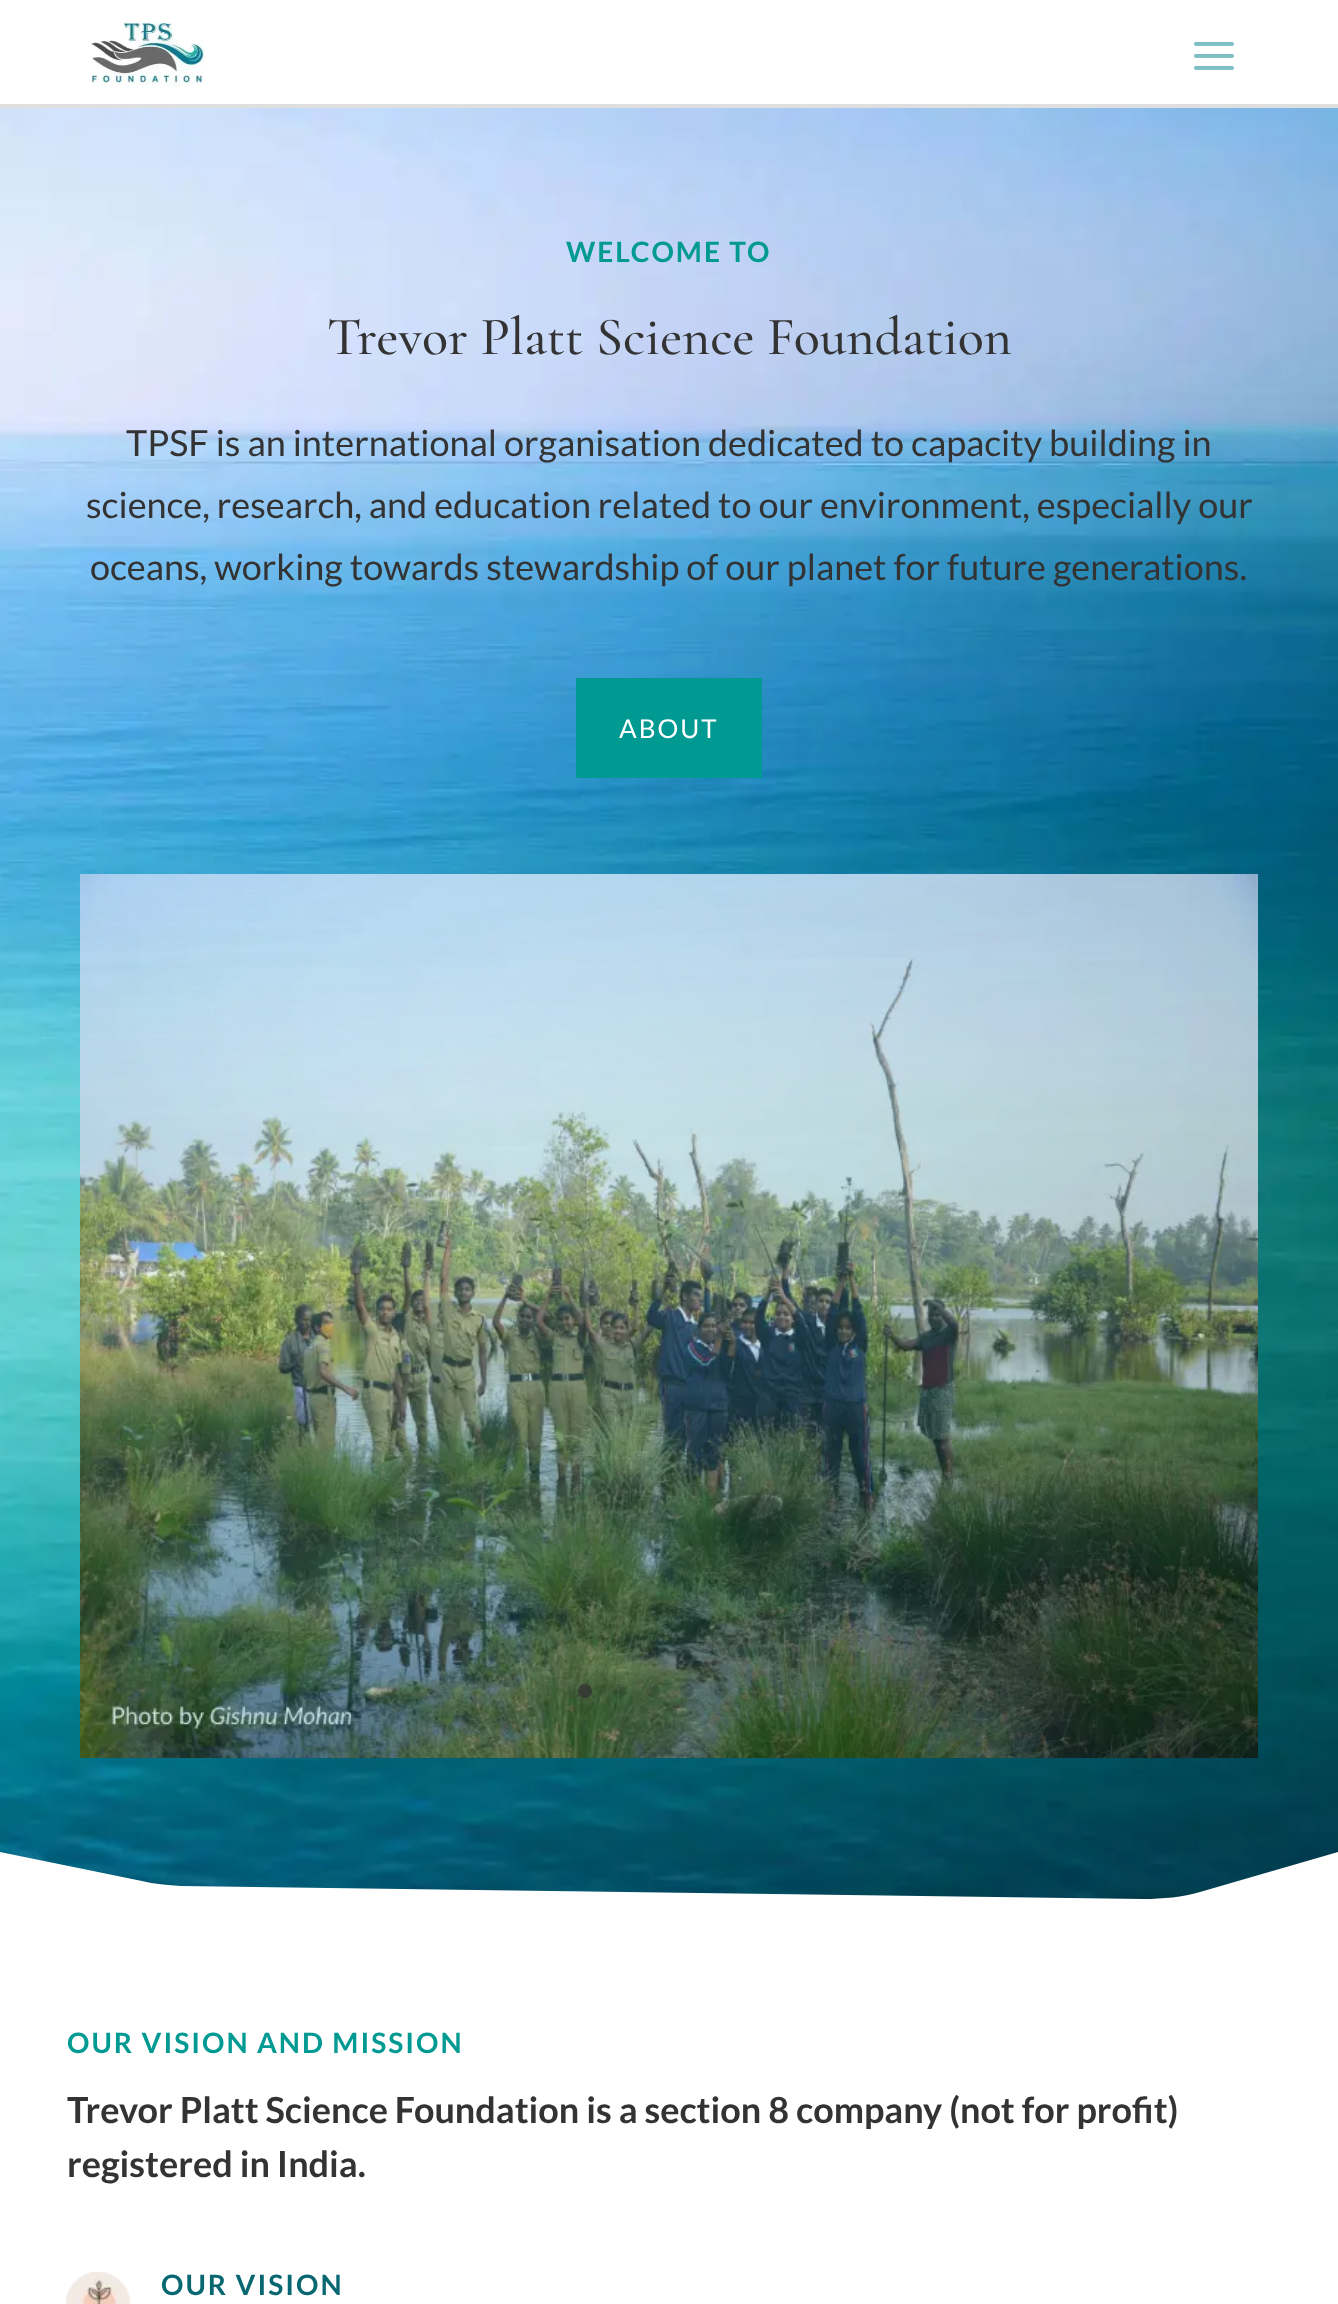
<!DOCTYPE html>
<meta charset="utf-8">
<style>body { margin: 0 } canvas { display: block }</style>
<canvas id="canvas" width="1338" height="2304"></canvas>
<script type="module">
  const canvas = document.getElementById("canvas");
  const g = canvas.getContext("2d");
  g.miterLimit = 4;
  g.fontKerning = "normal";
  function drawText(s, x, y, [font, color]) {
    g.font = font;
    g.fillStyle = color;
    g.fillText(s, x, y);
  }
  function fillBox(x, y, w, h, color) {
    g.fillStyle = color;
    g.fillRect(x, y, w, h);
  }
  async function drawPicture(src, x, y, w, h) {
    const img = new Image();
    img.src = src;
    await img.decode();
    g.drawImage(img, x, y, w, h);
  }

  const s1 = ["bold 28px Lato", "#009A92"];
  const s2 = ["500 54px Cormorant Garamond", "#333333"];
  const s3 = ["36px Lato", "#333333"];
  const s4 = ["26px Lato", "#FFFFFF"];
  const s5 = ["bold 36px Lato", "#333333"];
  const s6 = ["bold 28px Lato", "#096771"];

  fillBox(0, 0, 1338, 2304, "#FFFFFF");
  fillBox(0, 104, 1338, 4, "#DFDFDF");
  await drawPicture("pic1.png", 89, 20, 116, 67);
  await drawPicture("pic2.png", 1194, 41, 40, 29);
  await drawPicture("pic3.png", 0, 108, 1338, 1791);
  g.letterSpacing = "2px";
  drawText("WELCOME TO", 566, 262, s1);
  g.letterSpacing = "0px";
  drawText("Trevor Platt Science Foundation", 327, 354, s2);
  drawText("TPSF is an international organisation dedicated to capacity building in", 126, 456, s3);
  drawText("science, research, and education related to our environment, especially our", 86, 518, s3);
  drawText("oceans, working towards stewardship of our planet for future generations.", 90, 580, s3);
  g.fillStyle = "#009A92";
  g.beginPath();
  g.rect(578, 680, 182, 96);
  g.fill();
  g.strokeStyle = "#009A92";
  g.lineWidth = 4;
  g.stroke();
  g.letterSpacing = "2px";
  drawText("ABOUT", 619, 738, s4);
  await drawPicture("pic4.png", 80, 874, 1178, 884);
  g.fillStyle = "rgba(51, 51, 51, 0.8)";
  g.beginPath();
  g.arc(585, 1691, 7, 0, Math.PI * 2);
  g.fill();
  g.fillStyle = "rgba(0, 0, 0, 0.12)";
  g.beginPath();
  g.arc(619, 1691, 7, 0, Math.PI * 2);
  g.fill();
  g.beginPath();
  g.arc(653, 1691, 7, 0, Math.PI * 2);
  g.fill();
  g.beginPath();
  g.arc(687, 1691, 7, 0, Math.PI * 2);
  g.fill();
  g.beginPath();
  g.arc(721, 1691, 7, 0, Math.PI * 2);
  g.fill();
  g.beginPath();
  g.arc(755, 1691, 7, 0, Math.PI * 2);
  g.fill();
  g.fillStyle = "#FFFFFF";
  g.beginPath();
  g.moveTo(1143, 1899);
  g.lineTo(181, 1886);
  g.bezierCurveTo(167, 1885, 154, 1884, 142, 1881);
  g.lineTo(0, 1852);
  g.lineTo(0, 1902);
  g.lineTo(1338, 1902);
  g.lineTo(1338, 1852);
  g.lineTo(1200, 1892);
  g.bezierCurveTo(1183, 1897, 1163, 1899, 1143, 1899);
  g.closePath();
  g.fill();
  drawText("OUR VISION AND MISSION", 67, 2053, s1);
  g.letterSpacing = "0px";
  drawText("Trevor Platt Science Foundation is a section 8 company (not for profit)", 67, 2123, s5);
  drawText("registered in India.", 67, 2177, s5);
  await drawPicture("pic5.png", 66, 2272, 64, 32);
  g.letterSpacing = "2px";
  drawText("OUR VISION", 161, 2295, s6);
</script>
